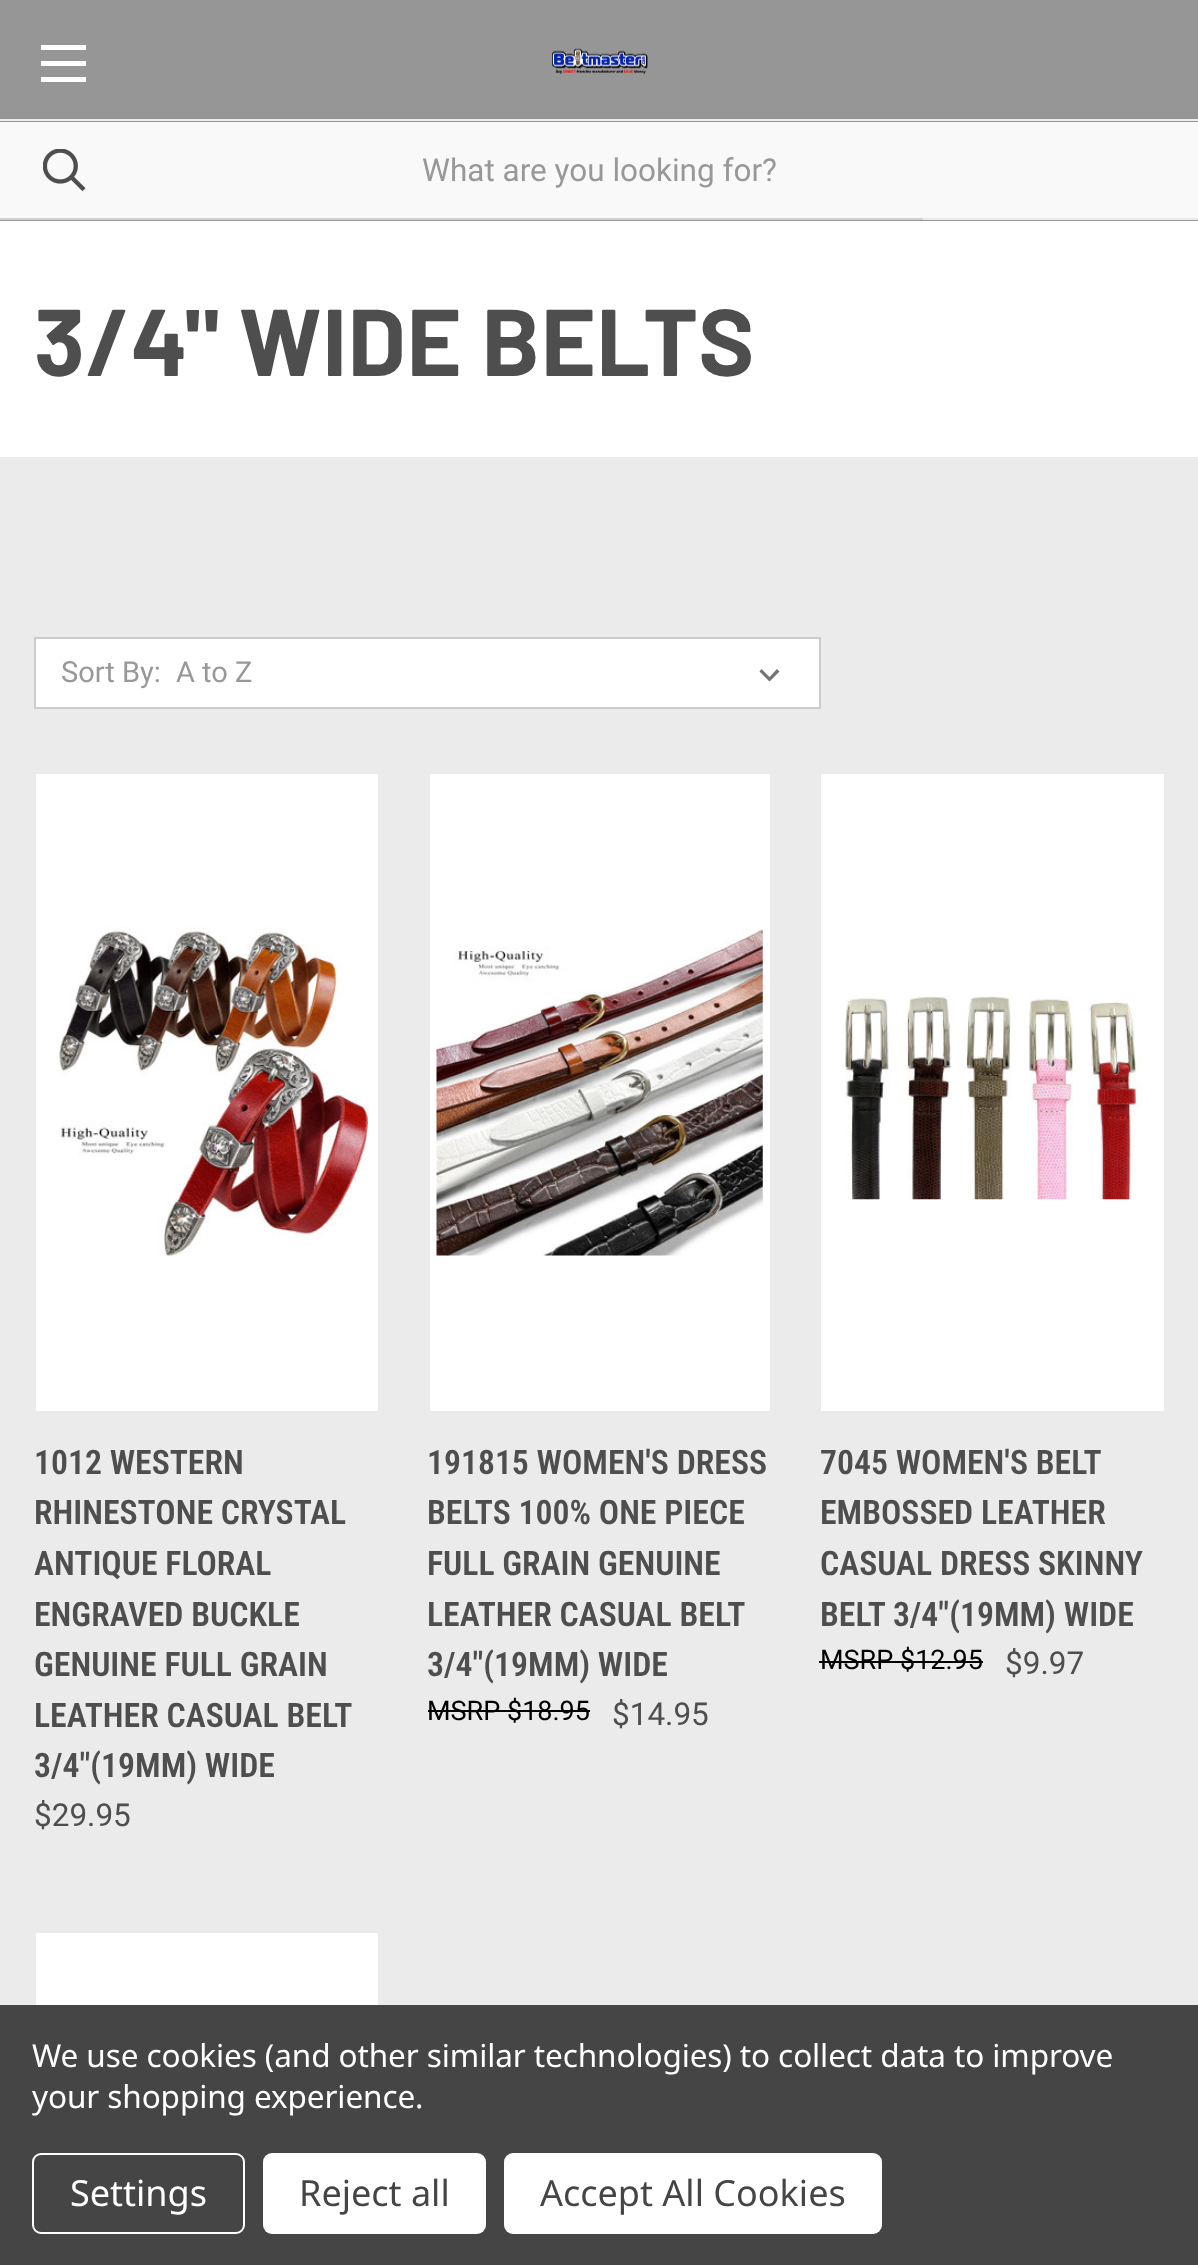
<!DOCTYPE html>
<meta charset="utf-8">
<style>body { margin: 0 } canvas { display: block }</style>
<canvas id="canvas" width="1198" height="2265"></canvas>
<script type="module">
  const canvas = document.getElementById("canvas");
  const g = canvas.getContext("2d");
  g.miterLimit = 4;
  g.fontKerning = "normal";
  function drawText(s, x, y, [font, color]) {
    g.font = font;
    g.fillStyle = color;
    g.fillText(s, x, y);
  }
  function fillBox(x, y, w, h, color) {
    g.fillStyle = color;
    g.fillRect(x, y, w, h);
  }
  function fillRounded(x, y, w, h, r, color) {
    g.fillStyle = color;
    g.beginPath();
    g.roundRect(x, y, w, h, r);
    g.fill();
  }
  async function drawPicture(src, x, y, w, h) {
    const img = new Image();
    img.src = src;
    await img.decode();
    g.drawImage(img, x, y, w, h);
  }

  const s1 = ["31.5px Roboto", "#989898"];
  const s2 = ["bold 94.5px Barlow", "#4E4E4E"];
  const s3 = ["29px Roboto", "#989898"];
  const s4 = ["600 33.75px Roboto Condensed", "#4E4E4E"];
  const s5 = ["31.5px Roboto", "#4E4E4E"];
  const s6 = ["27px Roboto", "#000000"];
  const s7 = ["31.5px Noto Sans", "#FFFFFF"];
  const s8 = ["36px Noto Sans", "#FFFFFF"];
  const s9 = ["36px Noto Sans", "#454545"];

  fillBox(0, 0, 1198, 2265, "#FFFFFF");
  fillBox(0, 0, 1198, 221, "#969696");
  fillBox(923, 218, 275, 2, "#EBEBEB");
  fillBox(41, 61, 45, 5, "#FFFFFF");
  fillBox(41, 45, 45, 5, "#FFFFFF");
  fillBox(41, 77, 45, 5, "#FFFFFF");
  await drawPicture("pic1.png", 552, 48, 96, 26);
  fillBox(0, 122, 1198, 96, "#F9F9F9");
  await drawPicture("pic2.png", 43, 149, 43, 42);
  fillBox(0, 119, 1198, 2, "#EBEBEB");
  drawText("What are you looking for?", 422, 181, s1);
  fillBox(0, 218, 923, 2, "#D2D2D2");
  g.letterSpacing = "0.5px";
  drawText("3/4\" WIDE BELTS", 34, 376, s2);
  fillBox(0, 457, 1198, 1548, "#EBEBEB");
  g.fillStyle = "#FFFFFF";
  g.beginPath();
  g.rect(35, 638, 785, 70);
  g.fill();
  g.strokeStyle = "#CCCCCC";
  g.lineWidth = 2;
  g.stroke();
  g.letterSpacing = "0px";
  drawText("Sort By:", 61, 682, s3);
  g.fillStyle = "#757575";
  g.beginPath();
  g.moveTo(777, 669);
  g.lineTo(769.5, 677);
  g.lineTo(761.5, 669);
  g.lineTo(759.5, 671.5);
  g.lineTo(769.5, 681.5);
  g.lineTo(779.5, 671.5);
  g.closePath();
  g.fill();
  drawText("A to Z", 176, 682, s3);
  fillBox(36, 774, 342, 637, "#FFFFFF");
  await drawPicture("pic3.png", 58, 927, 311, 330);
  drawText("1012 WESTERN", 34, 1474, s4);
  drawText("RHINESTONE CRYSTAL", 34, 1524, s4);
  drawText("ANTIQUE FLORAL", 34, 1575, s4);
  drawText("ENGRAVED BUCKLE", 34, 1626, s4);
  drawText("GENUINE FULL GRAIN", 34, 1676, s4);
  drawText("LEATHER CASUAL BELT", 34, 1727, s4);
  drawText("3/4\"(19MM) WIDE", 34, 1777, s4);
  drawText("$29.95", 34, 1826, s5);
  fillBox(430, 774, 340, 637, "#FFFFFF");
  await drawPicture("pic4.png", 436, 929, 327, 327);
  drawText("191815 WOMEN'S DRESS", 427, 1474, s4);
  drawText("BELTS 100% ONE PIECE", 427, 1524, s4);
  drawText("FULL GRAIN GENUINE", 427, 1575, s4);
  drawText("LEATHER CASUAL BELT", 427, 1626, s4);
  drawText("3/4\"(19MM) WIDE", 427, 1676, s4);
  drawText("MSRP $18.95", 427, 1720, s6);
  fillBox(428, 1710, 162, 2, "#000000");
  drawText("$14.95", 612, 1725, s5);
  fillBox(821, 774, 343, 637, "#FFFFFF");
  await drawPicture("pic5.png", 845, 994, 298, 206);
  drawText("7045 WOMEN'S BELT", 820, 1474, s4);
  drawText("EMBOSSED LEATHER", 820, 1524, s4);
  drawText("CASUAL DRESS SKINNY", 820, 1575, s4);
  drawText("BELT 3/4\"(19MM) WIDE", 820, 1626, s4);
  drawText("MSRP $12.95", 820, 1669, s6);
  fillBox(819, 1661, 164, 2, "#000000");
  drawText("$9.97", 1005, 1674, s5);
  fillBox(36, 1933, 342, 72, "#FFFFFF");
  g.strokeStyle = "#EBEBEB";
  g.strokeRect(35, 1932, 344, 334);
  fillBox(0, 2005, 1198, 260, "#454545");
  g.letterSpacing = "-0.1px";
  drawText("We use cookies (and other similar technologies) to collect data to improve", 32, 2067, s7);
  drawText("your shopping experience.", 32, 2108, s7);
  g.beginPath();
  g.roundRect(33, 2154, 211, 79, 8);
  g.strokeStyle = "#FFFFFF";
  g.stroke();
  g.letterSpacing = "0px";
  drawText("Settings", 70, 2206, s8);
  fillRounded(263, 2153, 223, 81, 9, "#FFFFFF");
  drawText("Reject all", 299, 2206, s9);
  fillRounded(504, 2153, 378, 81, 9, "#FFFFFF");
  drawText("Accept All Cookies", 540, 2206, s9);
</script>
